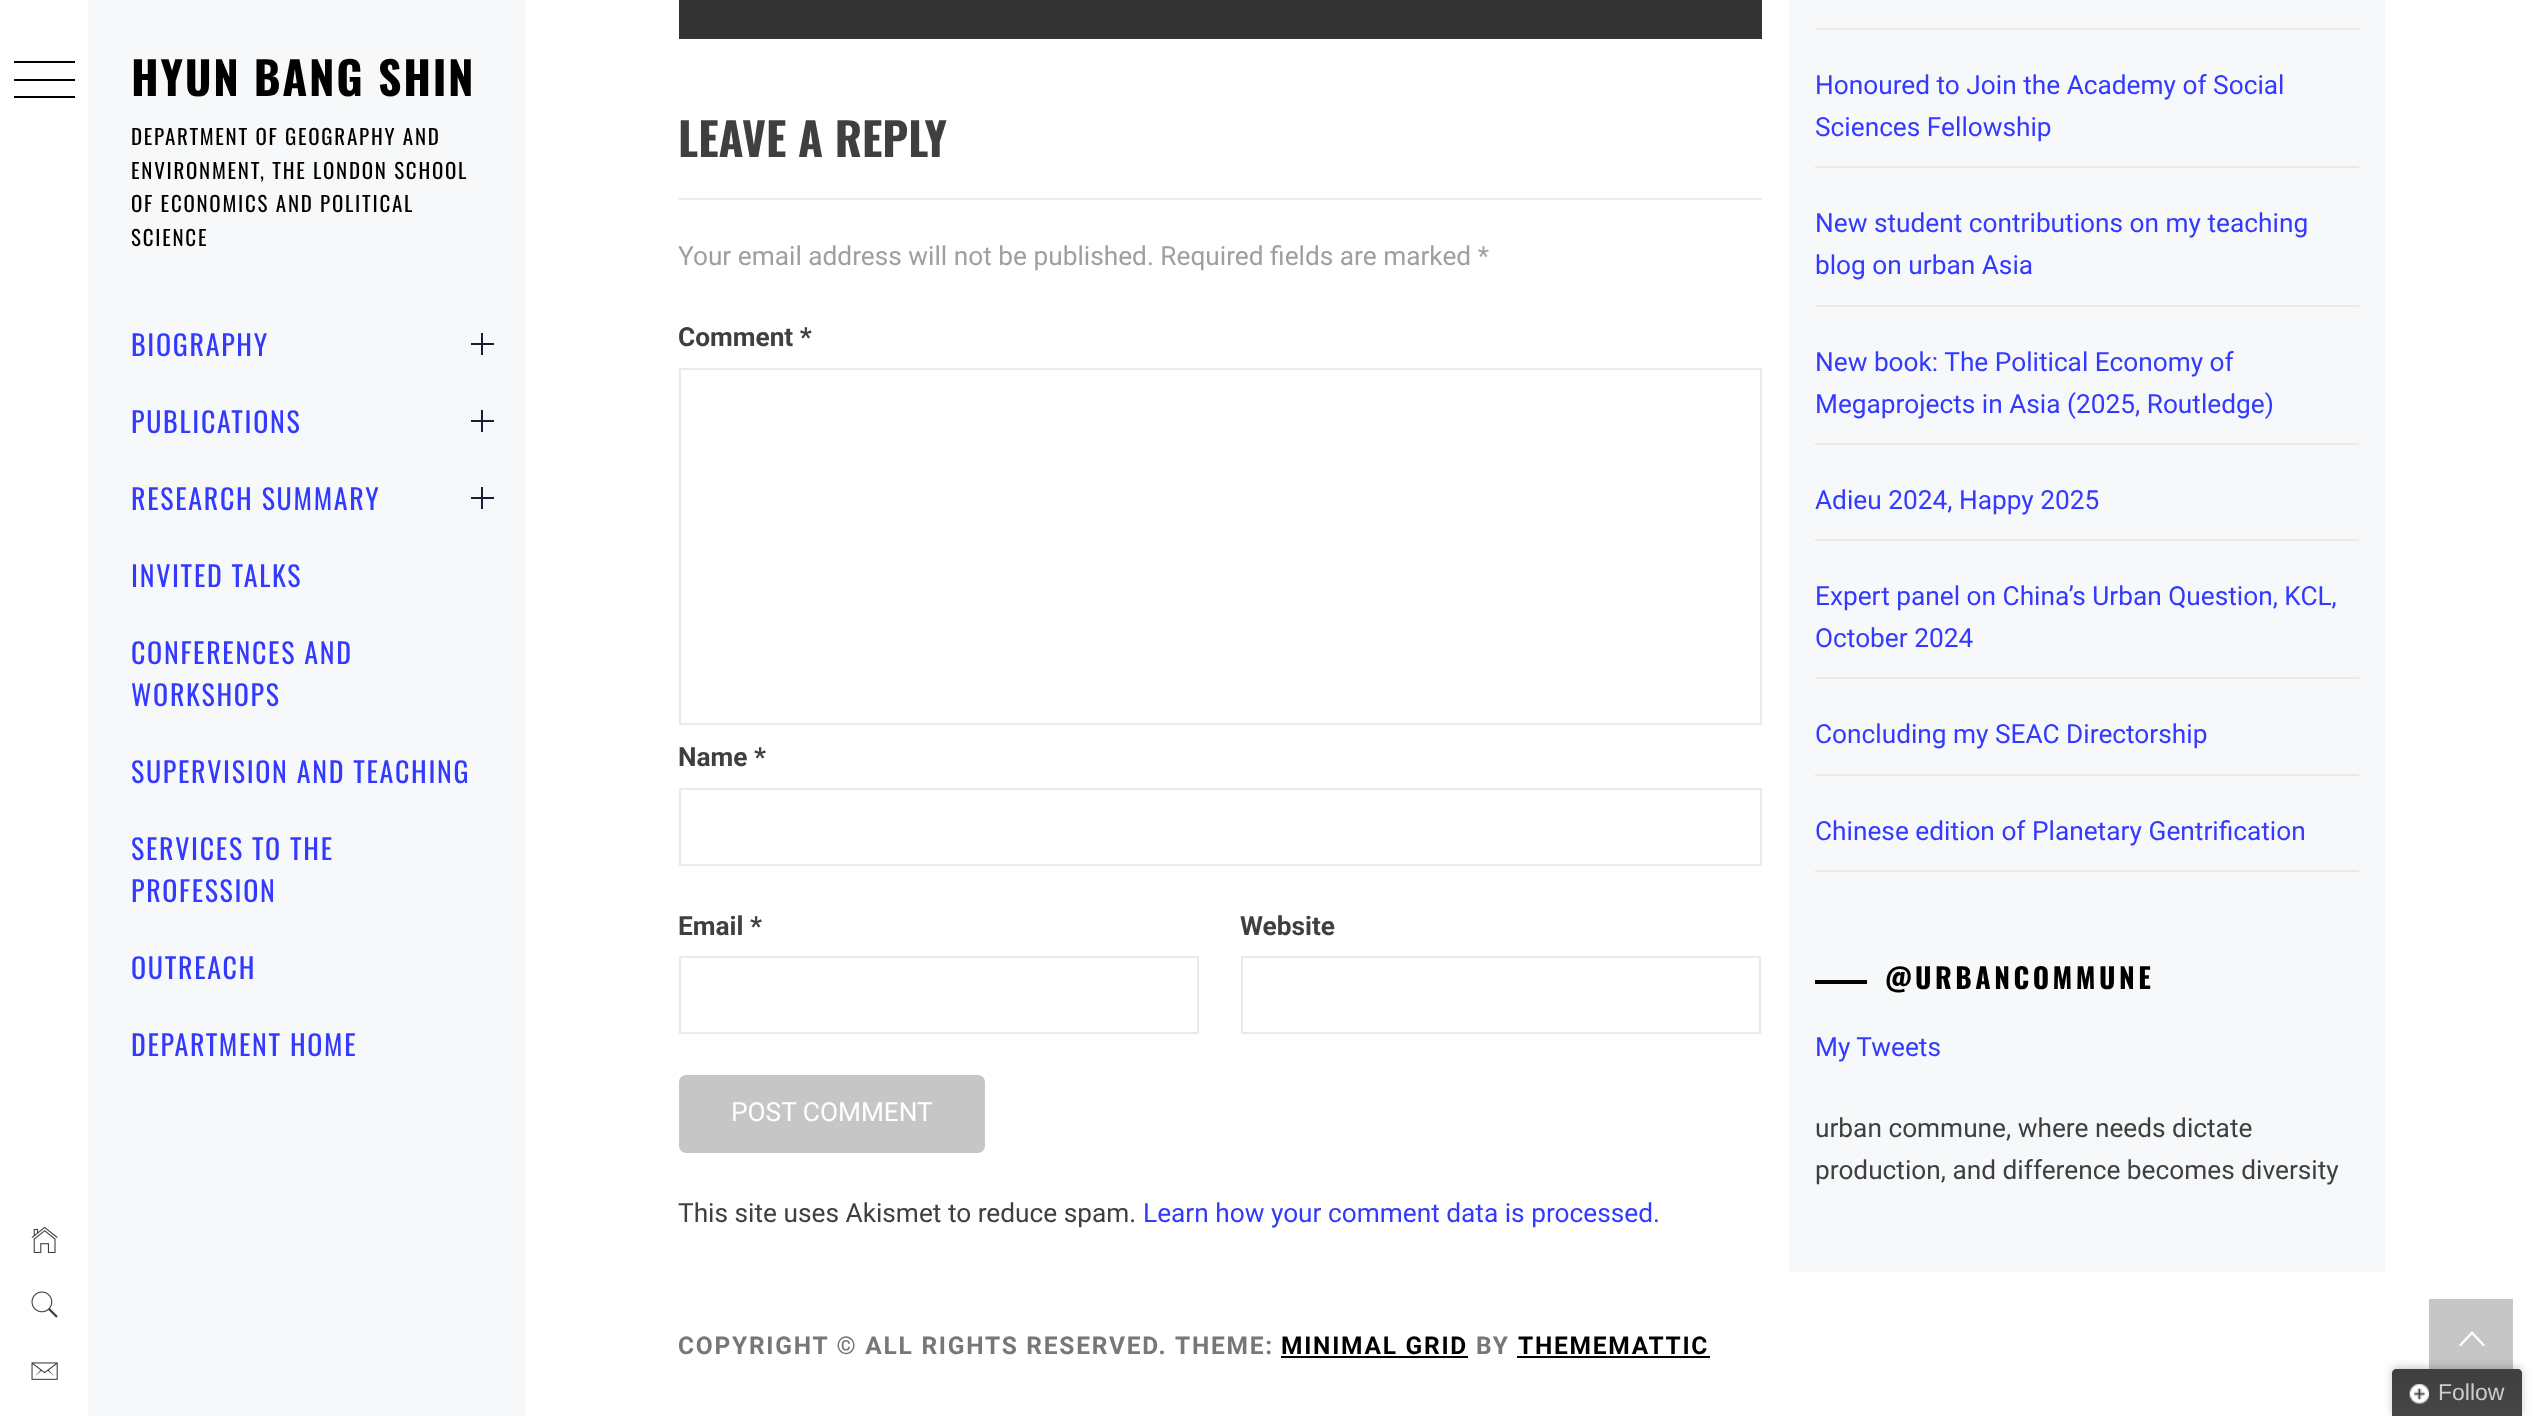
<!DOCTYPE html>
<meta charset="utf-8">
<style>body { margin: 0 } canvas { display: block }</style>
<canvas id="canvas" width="2538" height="1416"></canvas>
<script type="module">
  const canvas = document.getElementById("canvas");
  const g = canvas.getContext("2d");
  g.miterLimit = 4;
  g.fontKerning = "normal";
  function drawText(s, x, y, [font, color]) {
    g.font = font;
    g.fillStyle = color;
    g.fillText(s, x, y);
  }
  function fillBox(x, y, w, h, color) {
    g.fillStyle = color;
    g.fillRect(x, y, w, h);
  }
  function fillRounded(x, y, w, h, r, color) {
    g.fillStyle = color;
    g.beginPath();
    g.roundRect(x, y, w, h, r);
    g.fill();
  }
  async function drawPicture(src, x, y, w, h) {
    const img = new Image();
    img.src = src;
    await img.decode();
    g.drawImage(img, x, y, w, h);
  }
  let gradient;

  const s1 = ["bold 45.5px Oswald", "#000000"];
  const s2 = ["21px Oswald", "#000000"];
  const s3 = ["28px Oswald", "#333AFF"];
  const s4 = ["bold 45.5px Oswald", "#3E3F40"];
  const s5 = ["26.25px Roboto", "#9F9FA0"];
  const s6 = ["bold 26.25px Roboto", "#3E3F40"];
  const s7 = ["26.25px Roboto", "#FFFFFF"];
  const s8 = ["26.25px Roboto", "#3E3F40"];
  const s9 = ["26.25px Roboto", "#333AFF"];
  const s10 = ["bold 28px Oswald", "#000000"];
  const s11 = ["bold 24.5px Roboto", "#777777"];
  const s12 = ["bold 24.5px Roboto", "#000000"];
  const s13 = ["23px Liberation Sans", "#CCCCCC"];

  fillBox(0, 0, 2538, 1416, "#FFFFFF");
  fillBox(14, 61, 61, 2, "#000000");
  fillBox(14, 79, 61, 2, "#000000");
  fillBox(14, 96, 61, 2, "#000000");
  await drawPicture("pic1.png", 31, 1226, 27, 27);
  await drawPicture("pic2.png", 31, 1291, 27, 27);
  await drawPicture("pic3.png", 31, 1362, 27, 18);
  fillBox(88, 0, 437, 1416, "#F6F8F9");
  g.letterSpacing = "1.75px";
  drawText("HYUN BANG SHIN", 131, 96, s1);
  drawText("DEPARTMENT OF GEOGRAPHY AND", 131, 145, s2);
  drawText("ENVIRONMENT, THE LONDON SCHOOL", 131, 179, s2);
  drawText("OF ECONOMICS AND POLITICAL", 131, 212, s2);
  drawText("SCIENCE", 131, 246, s2);
  g.letterSpacing = "1.7px";
  drawText("BIOGRAPHY", 131, 356, s3);
  fillBox(471, 343, 23, 2, "#152035");
  fillBox(481, 333, 2, 22, "#152035");
  drawText("PUBLICATIONS", 131, 433, s3);
  fillBox(471, 420, 23, 2, "#152035");
  fillBox(481, 410, 2, 22, "#152035");
  drawText("RESEARCH SUMMARY", 131, 510, s3);
  fillBox(471, 497, 23, 2, "#152035");
  fillBox(481, 487, 2, 22, "#152035");
  drawText("INVITED TALKS", 131, 587, s3);
  drawText("CONFERENCES AND", 131, 664, s3);
  drawText("WORKSHOPS", 131, 706, s3);
  drawText("SUPERVISION AND TEACHING", 131, 783, s3);
  drawText("SERVICES TO THE", 131, 860, s3);
  drawText("PROFESSION", 131, 902, s3);
  drawText("OUTREACH", 131, 979, s3);
  drawText("DEPARTMENT HOME", 131, 1056, s3);
  fillBox(679, 0, 1083, 39, "#333333");
  fillBox(679, 198, 1083, 2, "#EAEAEA");
  g.letterSpacing = "0px";
  drawText("LEAVE A REPLY", 678, 157, s4);
  drawText("Your email address will not be published. Required fields are marked *", 678, 265, s5);
  drawText("Comment *", 678, 346, s6);
  g.strokeStyle = "#EAEAEA";
  g.lineWidth = 2;
  g.strokeRect(680, 369, 1081, 355);
  drawText("Name *", 678, 766, s6);
  g.strokeRect(680, 789, 1081, 76);
  drawText("Email *", 678, 935, s6);
  g.strokeRect(680, 957, 518, 76);
  drawText("Website", 1240, 935, s6);
  g.strokeRect(1242, 957, 518, 76);
  fillRounded(679, 1075, 306, 78, 7, "#C6C6C6");
  drawText("POST COMMENT", 731, 1121, s7);
  drawText("This site uses Akismet to reduce spam.", 678, 1222, s8);
  drawText("Learn how your comment data is processed.", 1143, 1222, s9);
  fillBox(1789, 0, 596, 1272, "#F6F8F9");
  fillBox(1815, 28, 544, 2, "#EAEAEA");
  fillBox(1815, 166, 544, 2, "#EAEAEA");
  drawText("Honoured to Join the Academy of Social", 1815, 94, s9);
  drawText("Sciences Fellowship", 1815, 136, s9);
  fillBox(1815, 305, 544, 2, "#EAEAEA");
  drawText("New student contributions on my teaching", 1815, 232, s9);
  drawText("blog on urban Asia", 1815, 274, s9);
  fillBox(1815, 443, 544, 2, "#EAEAEA");
  drawText("New book: The Political Economy of", 1815, 371, s9);
  drawText("Megaprojects in Asia (2025, Routledge)", 1815, 413, s9);
  fillBox(1815, 539, 544, 2, "#EAEAEA");
  drawText("Adieu 2024, Happy 2025", 1815, 509, s9);
  fillBox(1815, 677, 544, 2, "#EAEAEA");
  drawText("Expert panel on China’s Urban Question, KCL,", 1815, 605, s9);
  drawText("October 2024", 1815, 647, s9);
  fillBox(1815, 774, 544, 2, "#EAEAEA");
  drawText("Concluding my SEAC Directorship", 1815, 743, s9);
  fillBox(1815, 870, 544, 2, "#EAEAEA");
  drawText("Chinese edition of Planetary Gentrification", 1815, 840, s9);
  fillBox(1815, 980, 52, 4, "#000000");
  g.letterSpacing = "3.5px";
  drawText("@URBANCOMMUNE", 1885, 989, s10);
  g.letterSpacing = "0px";
  drawText("My Tweets", 1815, 1056, s9);
  drawText("urban commune, where needs dictate", 1815, 1137, s8);
  drawText("production, and difference becomes diversity", 1815, 1179, s8);
  g.letterSpacing = "1.75px";
  drawText("COPYRIGHT © ALL RIGHTS RESERVED.", 678, 1354, s11);
  drawText("THEME:", 1175, 1354, s11);
  drawText("MINIMAL GRID", 1281, 1354, s12);
  fillBox(1281, 1356, 187, 2, "#000000");
  drawText("BY", 1476, 1354, s11);
  drawText("THEMEMATTIC", 1518, 1354, s12);
  fillBox(1517, 1356, 193, 2, "#000000");
  fillBox(2429, 1299, 84, 70, "#C6C6C6");
  g.fillStyle = "#FFFFFF";
  g.beginPath();
  g.moveTo(2483.5, 1346.5);
  g.lineTo(2472, 1334.5);
  g.lineTo(2460.5, 1346.5);
  g.lineTo(2459, 1345);
  g.lineTo(2472, 1331);
  g.lineTo(2485, 1345);
  g.closePath();
  g.fill();
  g.fillStyle = "rgba(0, 0, 0, 0.2)";
  g.filter = "blur(4.5px)";
  g.beginPath();
  g.roundRect(2392, 1367, 130, 49, 4);
  g.fill();
  g.filter = "none";
  gradient = g.createLinearGradient(2392, 1369, 2392, 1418);
  gradient.addColorStop(0, "#3F3F3F");
  gradient.addColorStop(1, "#464646");
  g.fillStyle = gradient;
  g.beginPath();
  g.moveTo(2396, 1369);
  g.lineTo(2518, 1369);
  g.bezierCurveTo(2520, 1369, 2522, 1371, 2522, 1373);
  g.lineTo(2522, 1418);
  g.lineTo(2392, 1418);
  g.lineTo(2392, 1373);
  g.bezierCurveTo(2392, 1371, 2394, 1369, 2396, 1369);
  g.closePath();
  g.fill();
  await drawPicture("pic4.png", 2409, 1384, 20, 20);
  g.letterSpacing = "0px";
  drawText("Follow", 2438, 1400, s13);
</script>
